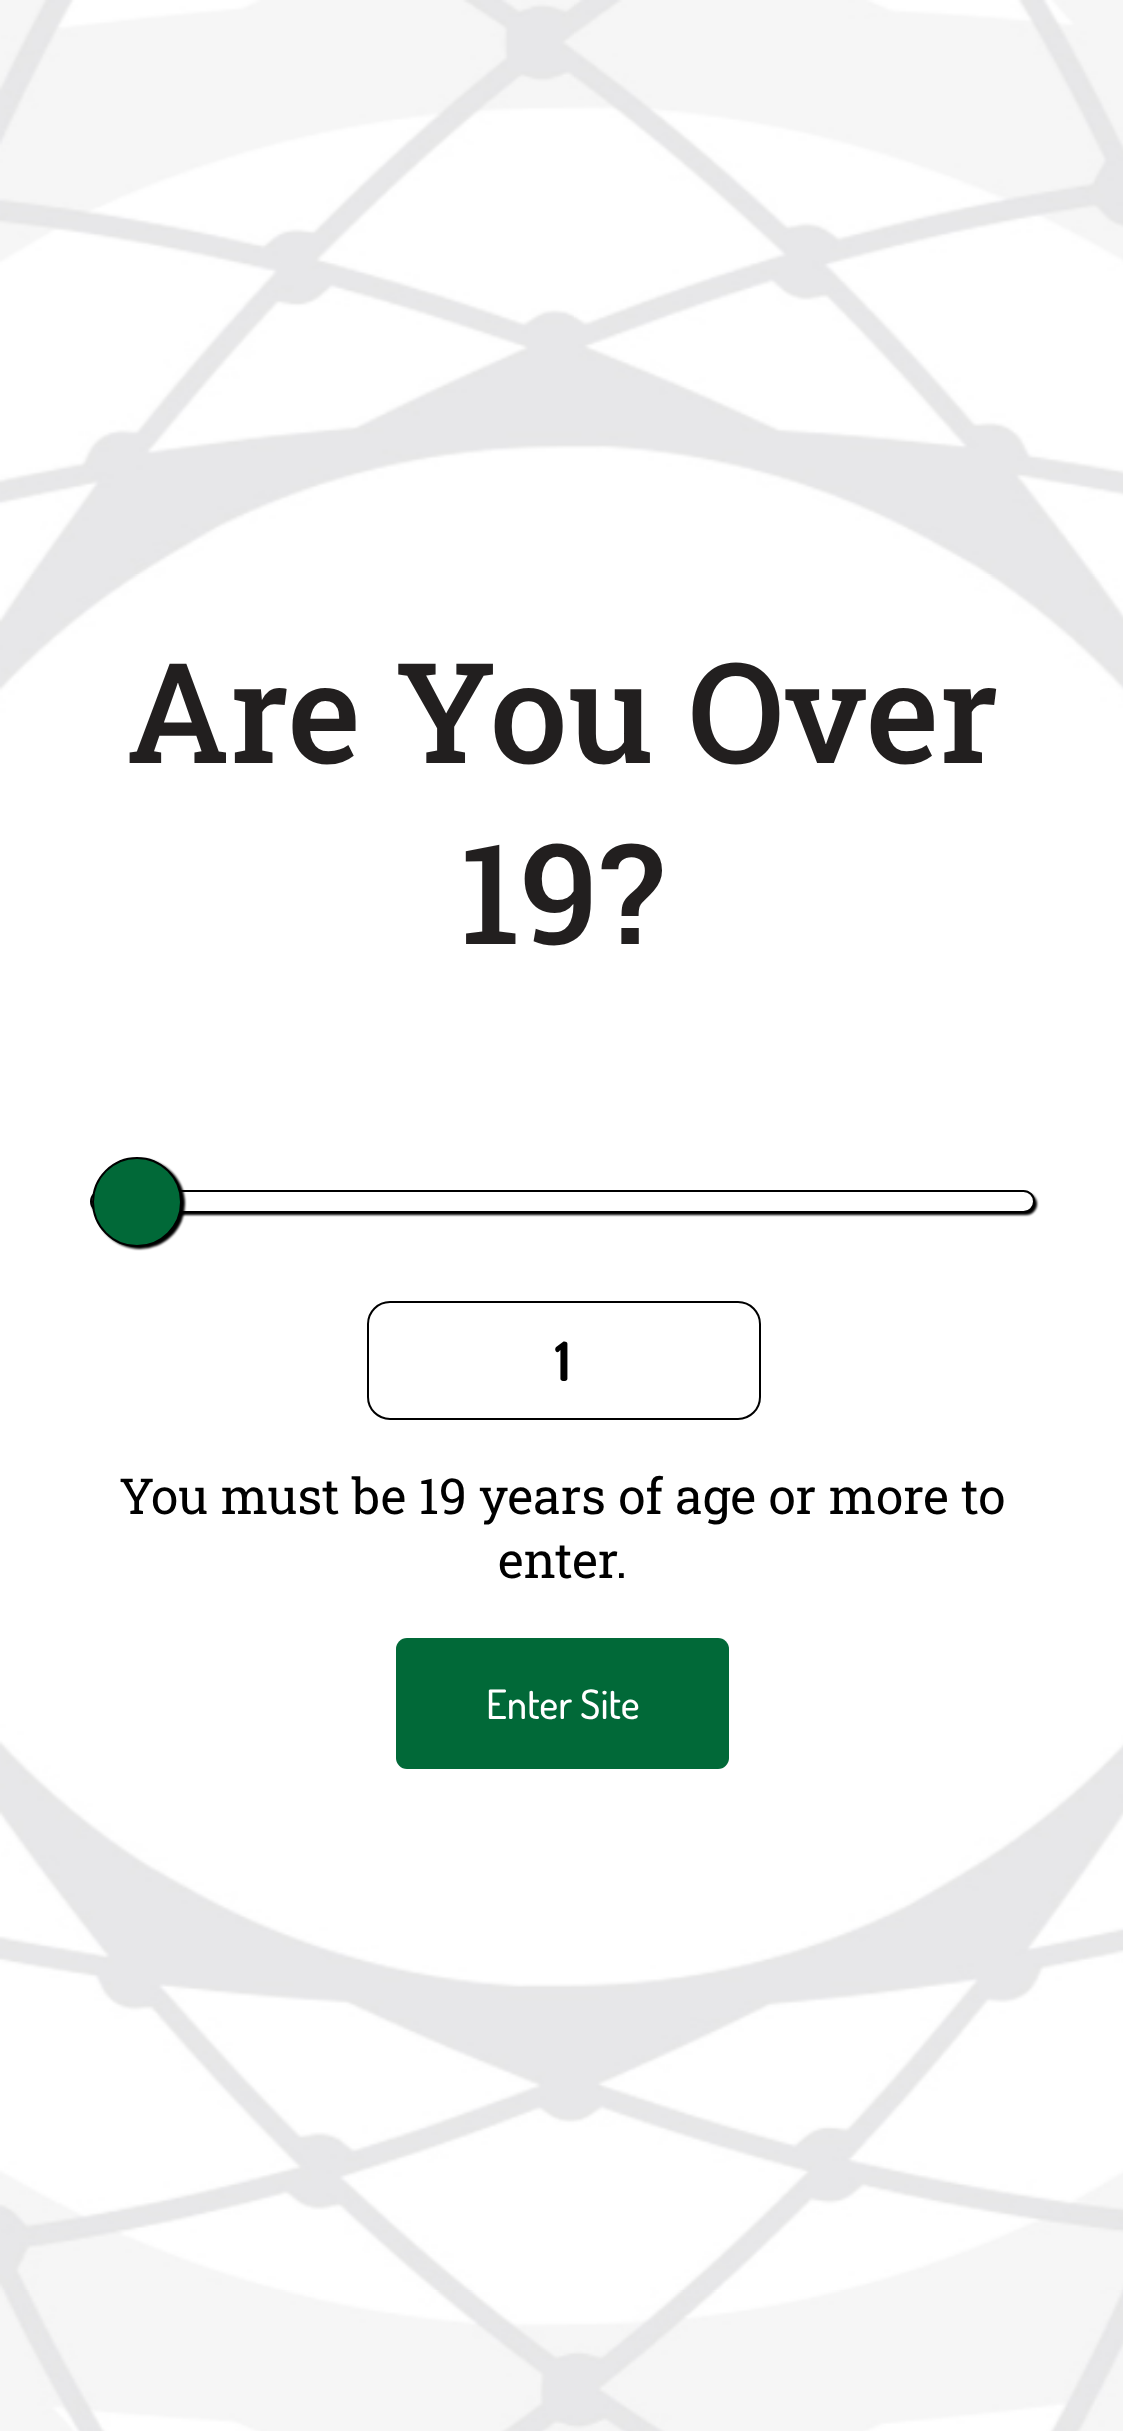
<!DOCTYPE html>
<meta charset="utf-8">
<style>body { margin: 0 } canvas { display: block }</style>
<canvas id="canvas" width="1123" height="2431"></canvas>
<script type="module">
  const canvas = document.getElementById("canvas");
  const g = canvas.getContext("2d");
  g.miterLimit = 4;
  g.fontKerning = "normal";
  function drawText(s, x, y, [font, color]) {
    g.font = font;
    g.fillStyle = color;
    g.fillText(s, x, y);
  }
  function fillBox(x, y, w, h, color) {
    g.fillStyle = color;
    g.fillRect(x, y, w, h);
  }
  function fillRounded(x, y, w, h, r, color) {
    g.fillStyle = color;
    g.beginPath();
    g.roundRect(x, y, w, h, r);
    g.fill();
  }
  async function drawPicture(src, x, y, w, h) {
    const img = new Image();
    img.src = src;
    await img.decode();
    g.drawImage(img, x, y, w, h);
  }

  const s1 = ["500 139.5px Roboto Slab", "#221F1F"];
  const s2 = ["bold 54px Dosis", "#000000"];
  const s3 = ["49.5px Roboto Slab", "#000000"];
  const s4 = ["500 40.5px Dosis", "#FFFFFF"];

  fillBox(0, 0, 1123, 2431, "#FFFFFF");
  await drawPicture("pic1.png", 0, 0, 1123, 2431);
  drawText("Are You Over", 126, 763, s1);
  drawText("19?", 460, 944, s1);
  g.fillStyle = "#000000";
  g.filter = "blur(1px)";
  g.beginPath();
  g.roundRect(92, 1193, 945, 22, 11);
  g.fill();
  g.filter = "none";
  g.fillStyle = "#FFFFFF";
  g.beginPath();
  g.roundRect(91, 1191, 943, 21, 10.5);
  g.fill();
  g.strokeStyle = "#000000";
  g.lineWidth = 2;
  g.stroke();
  g.fillStyle = "#000000";
  g.filter = "blur(1px)";
  g.beginPath();
  g.roundRect(95, 1159, 90, 90, 45);
  g.fill();
  g.filter = "none";
  g.fillStyle = "#016938";
  g.beginPath();
  g.arc(137, 1202, 44, 0, Math.PI * 2);
  g.fill();
  g.stroke();
  g.beginPath();
  g.roundRect(368, 1302, 392, 117, 22);
  g.stroke();
  drawText("1", 555, 1381, s2);
  drawText("You must be 19 years of age or more to", 119, 1514, s3);
  drawText("enter.", 498, 1578, s3);
  fillRounded(396, 1638, 333, 131, 11, "#016938");
  drawText("Enter Site", 486, 1719, s4);
</script>
